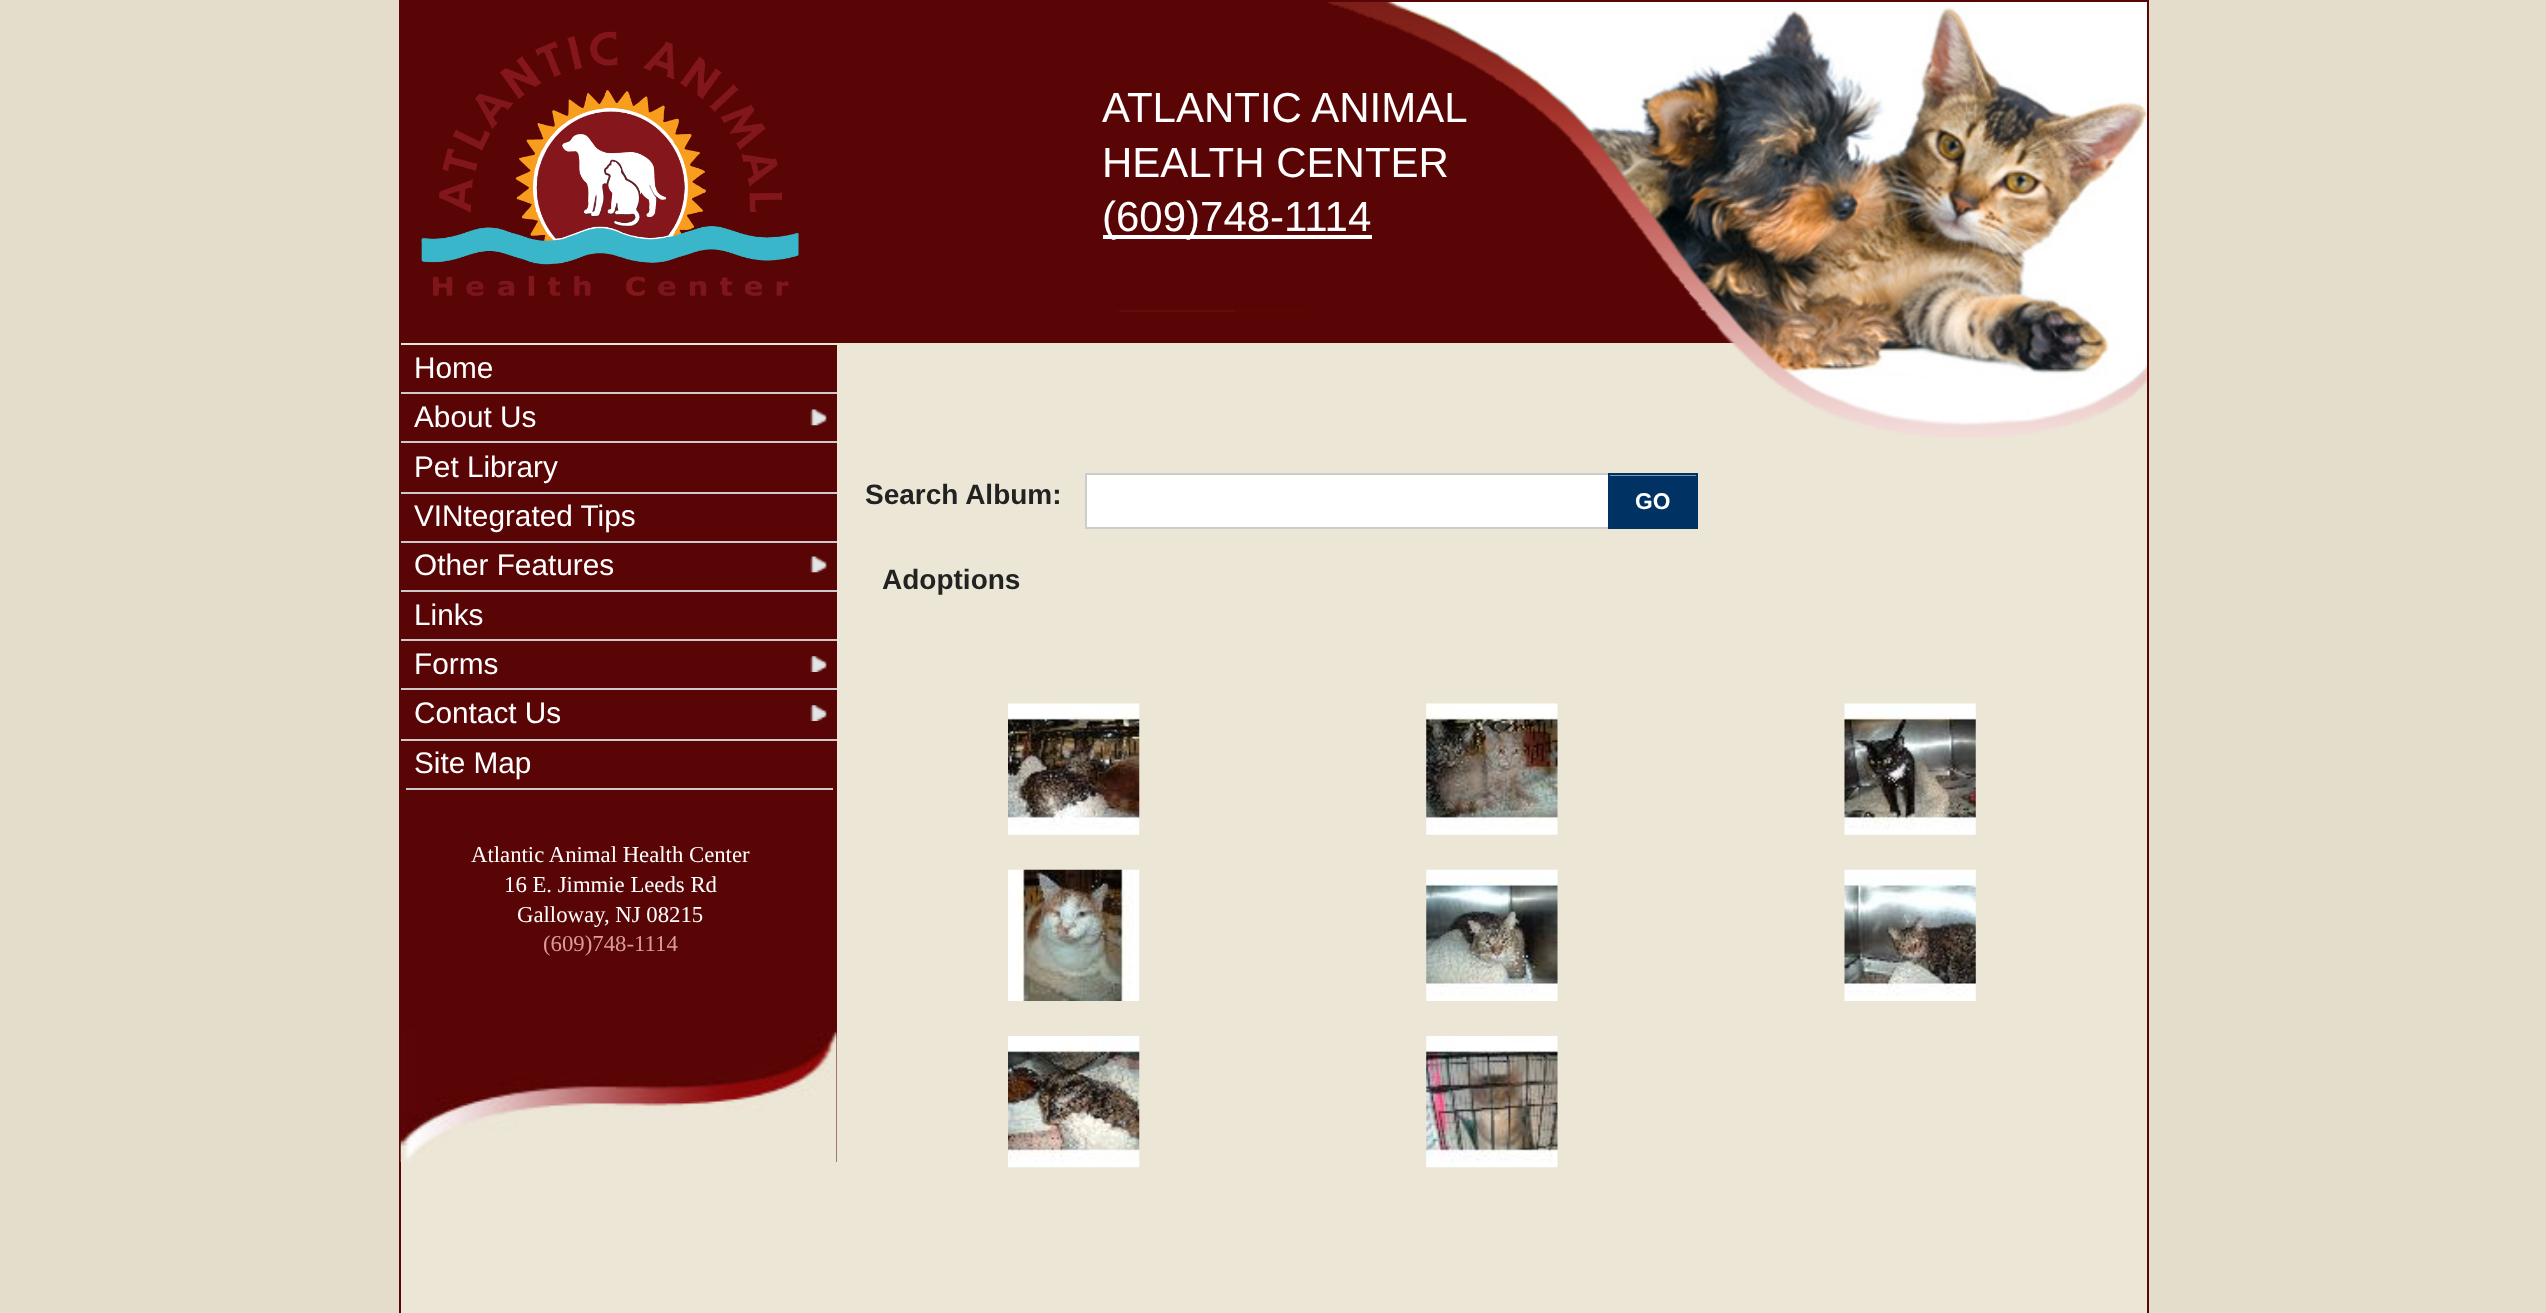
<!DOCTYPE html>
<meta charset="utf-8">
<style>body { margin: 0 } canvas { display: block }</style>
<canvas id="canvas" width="2546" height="1313"></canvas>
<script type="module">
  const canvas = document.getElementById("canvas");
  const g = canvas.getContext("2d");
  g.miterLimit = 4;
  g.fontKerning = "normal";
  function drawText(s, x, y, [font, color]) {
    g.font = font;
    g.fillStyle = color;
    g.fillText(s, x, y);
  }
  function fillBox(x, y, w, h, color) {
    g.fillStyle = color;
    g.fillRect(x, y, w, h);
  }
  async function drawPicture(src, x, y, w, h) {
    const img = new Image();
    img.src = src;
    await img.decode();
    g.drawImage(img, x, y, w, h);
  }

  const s1 = ["42px Liberation Sans", "#FFFFFF"];
  const s2 = ["29.75px Liberation Sans", "#FFFFFF"];
  const s3 = ["22.75px Liberation Serif", "#FFFFFF"];
  const s4 = ["22.75px Liberation Serif", "#D99C99"];
  const s5 = ["bold 28px Liberation Sans", "#222222"];
  const s6 = ["bold 22.75px Liberation Sans", "#FFFFFF"];

  fillBox(0, 0, 2546, 1313, "#E4DDCB");
  fillBox(401, 343, 1746, 970, "#ECE6D6");
  fillBox(401, 2, 1746, 341, "#590505");
  await drawPicture("pic1.png", 1118, 2, 1029, 436);
  fillBox(399, 0, 1750, 2, "#590505");
  fillBox(2147, 438, 2, 875, "#590505");
  fillBox(2147, 0, 2, 445, "#590505");
  fillBox(399, 438, 2, 875, "#590505");
  fillBox(399, 0, 2, 445, "#590505");
  await drawPicture("pic2.png", 421, 31, 378, 265);
  drawText("ATLANTIC ANIMAL", 1102, 122, s1);
  drawText("HEALTH CENTER", 1102, 177, s1);
  fillBox(1103, 235, 269, 4, "#FFFFFF");
  drawText("(609)748-1114", 1102, 231, s1);
  fillBox(401, 345, 436, 817, "#590505");
  fillBox(401, 392, 436, 2, "#CCCCCC");
  drawText("Home", 414, 378, s2);
  fillBox(401, 441, 436, 2, "#CCCCCC");
  drawText("About Us", 414, 427, s2);
  await drawPicture("pic3.png", 810, 409, 17, 17);
  fillBox(401, 492, 436, 2, "#CCCCCC");
  drawText("Pet Library", 414, 477, s2);
  fillBox(401, 541, 436, 2, "#CCCCCC");
  drawText("VINtegrated Tips", 414, 526, s2);
  fillBox(401, 590, 436, 2, "#CCCCCC");
  drawText("Other Features", 414, 575, s2);
  await drawPicture("pic3.png", 810, 556, 17, 17);
  fillBox(401, 639, 436, 2, "#CCCCCC");
  drawText("Links", 414, 625, s2);
  fillBox(401, 688, 436, 2, "#CCCCCC");
  drawText("Forms", 414, 674, s2);
  await drawPicture("pic4.png", 810, 656, 17, 16);
  fillBox(401, 739, 436, 2, "#CCCCCC");
  drawText("Contact Us", 414, 723, s2);
  await drawPicture("pic4.png", 810, 705, 17, 16);
  fillBox(406, 788, 427, 2, "#CCCCCC");
  drawText("Site Map", 414, 773, s2);
  drawText("Atlantic Animal Health Center", 471, 862, s3);
  drawText("16 E. Jimmie Leeds Rd", 504, 892, s3);
  drawText("Galloway, NJ 08215", 517, 922, s3);
  drawText("(609)748-1114", 543, 951, s4);
  await drawPicture("pic5.png", 400, 1029, 437, 133);
  drawText("Search Album:", 865, 504, s5);
  fillBox(1087, 475, 521, 52, "#FFFFFF");
  g.strokeStyle = "#CCCCCC";
  g.lineWidth = 2;
  g.strokeRect(1086, 474, 530, 54);
  fillBox(1610, 476, 86, 51, "#003363");
  fillBox(1610, 475, 86, 1, "#8099B1");
  g.strokeStyle = "#003363";
  g.strokeRect(1609, 474, 88, 54);
  drawText("GO", 1635, 509, s6);
  drawText("Adoptions", 882, 589, s5);
  await drawPicture("pic6.png", 1008, 703, 132, 132);
  await drawPicture("pic7.png", 1426, 703, 132, 132);
  await drawPicture("pic8.png", 1844, 703, 132, 132);
  await drawPicture("pic9.png", 1008, 869, 132, 132);
  await drawPicture("pic10.png", 1426, 869, 132, 132);
  await drawPicture("pic11.png", 1844, 869, 132, 132);
  await drawPicture("pic12.png", 1008, 1036, 132, 132);
  await drawPicture("pic13.png", 1426, 1036, 132, 132);
</script>
